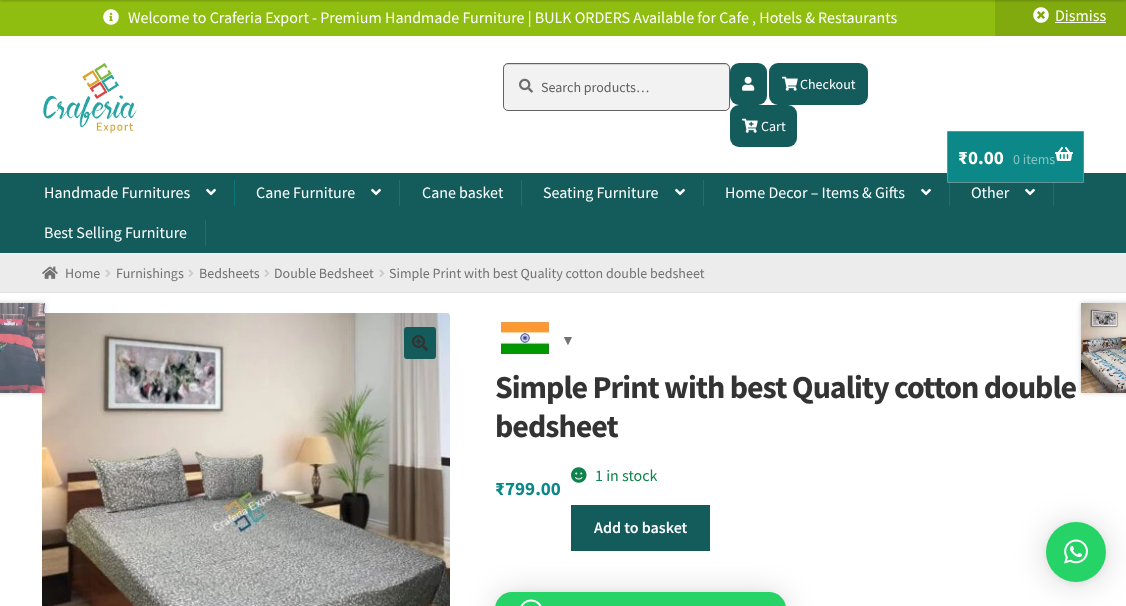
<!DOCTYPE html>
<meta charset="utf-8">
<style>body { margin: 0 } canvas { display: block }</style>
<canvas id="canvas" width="1126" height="606"></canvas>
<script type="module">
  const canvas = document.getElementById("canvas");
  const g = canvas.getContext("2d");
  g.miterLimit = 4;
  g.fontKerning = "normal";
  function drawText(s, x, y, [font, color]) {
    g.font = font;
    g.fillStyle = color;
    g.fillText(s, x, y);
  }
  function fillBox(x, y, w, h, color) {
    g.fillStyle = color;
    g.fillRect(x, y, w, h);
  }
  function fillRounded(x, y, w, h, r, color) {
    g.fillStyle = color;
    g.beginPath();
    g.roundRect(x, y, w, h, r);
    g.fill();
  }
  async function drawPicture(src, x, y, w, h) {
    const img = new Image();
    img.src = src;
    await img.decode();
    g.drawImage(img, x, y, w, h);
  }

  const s1 = ["16px Source Sans Pro", "#FFFFFF"];
  const s2 = ["14px Source Sans Pro", "#616161"];
  const s3 = ["14px Source Sans Pro", "#FFFFFF"];
  const s4 = ["bold 19px Source Sans Pro", "#FFFFFF"];
  const s5 = ["14px Source Sans Pro", "#85C4C3"];
  const s6 = ["14px Source Sans Pro", "#727272"];
  const s7 = ["14px Liberation Sans", "#727272"];
  const s8 = ["bold 32px Source Sans Pro", "#333333"];
  const s9 = ["16px Source Sans Pro", "#0F834D"];
  const s10 = ["bold 19px Source Sans Pro", "#0B8887"];
  const s11 = ["600 16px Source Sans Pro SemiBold", "#FFFFFF"];

  fillBox(0, 0, 1126, 606, "#FFFFFF");
  fillBox(0, 0, 995, 36, "#8FBD10");
  await drawPicture("pic1.png", 103, 9, 16, 16);
  drawText("Welcome to Craferia Export - Premium Handmade Furniture | BULK ORDERS Available for Cafe , Hotels & Restaurants", 128, 23, s1);
  fillBox(995, 0, 131, 36, "#81AA0E");
  await drawPicture("pic2.png", 1033, 7, 16, 16);
  drawText("Dismiss", 1055, 21, s1);
  fillBox(1055, 22, 51, 1, "#FFFFFF");
  g.fillStyle = "rgba(0, 0, 0, 0.2)";
  g.filter = "blur(1px)";
  g.beginPath();
  g.rect(0, -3, 1126, 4);
  g.fill();
  g.filter = "none";
  fillBox(0, 253, 1126, 1, "#F0F0F0");
  await drawPicture("pic3.png", 42, 63, 95, 71);
  fillRounded(503, 63, 227, 48, 5, "#F2F2F2");
  g.fillStyle = "#D4D4D4";
  g.beginPath();
  g.moveTo(508, 65);
  g.lineTo(725, 65);
  g.bezierCurveTo(727, 65, 729, 67, 729, 69);
  g.bezierCurveTo(729, 66, 728, 64, 725, 64);
  g.lineTo(508, 64);
  g.bezierCurveTo(505, 64, 504, 66, 504, 69);
  g.bezierCurveTo(504, 67, 506, 65, 508, 65);
  g.closePath();
  g.fill();
  g.beginPath();
  g.roundRect(503.5, 63.5, 226, 47, 4.5);
  g.strokeStyle = "#646262";
  g.stroke();
  await drawPicture("pic4.png", 519, 78, 14, 15);
  drawText("Search products…", 541, 92, s2);
  fillRounded(730, 63, 37, 42, 9, "#145B5C");
  await drawPicture("pic5.png", 742, 76, 13, 15);
  fillRounded(769, 63, 99, 42, 9, "#145B5C");
  await drawPicture("pic6.png", 782, 76, 16, 15);
  drawText("Checkout", 800, 89, s3);
  fillRounded(730, 105, 67, 42, 9, "#145B5C");
  await drawPicture("pic7.png", 742, 118, 16, 15);
  drawText("Cart", 761, 131, s3);
  fillBox(0, 173, 1126, 80, "#145B5C");
  fillBox(949, 180, 1, 26, "#0C7778");
  fillBox(1053, 180, 1, 26, "#0C7778");
  g.fillStyle = "#0B8887";
  g.beginPath();
  g.rect(947.5, 131.5, 136, 51);
  g.fill();
  g.strokeStyle = "#649494";
  g.stroke();
  drawText("₹0.00", 958, 164, s4);
  drawText("0 items", 1013, 164, s5);
  await drawPicture("pic8.png", 1055, 147, 18, 14);
  fillBox(234, 180, 1, 26, "#0C7778");
  drawText("Handmade Furnitures", 44, 198, s1);
  await drawPicture("pic9.png", 206, 188, 10, 8);
  fillBox(399, 180, 1, 26, "#0C7778");
  drawText("Cane Furniture", 256, 198, s1);
  await drawPicture("pic9.png", 371, 188, 10, 8);
  fillBox(521, 180, 1, 26, "#0C7778");
  drawText("Cane basket", 422, 198, s1);
  fillBox(703, 180, 1, 26, "#0C7778");
  drawText("Seating Furniture", 543, 198, s1);
  await drawPicture("pic9.png", 675, 188, 10, 8);
  drawText("Home Decor – Items & Gifts", 725, 198, s1);
  await drawPicture("pic9.png", 921, 188, 10, 8);
  drawText("Other", 971, 198, s1);
  await drawPicture("pic9.png", 1025, 188, 10, 8);
  fillBox(205, 220, 1, 26, "#0C7778");
  drawText("Best Selling Furniture", 44, 238, s1);
  fillBox(0, 254, 1126, 38, "#ECECEC");
  fillBox(0, 292, 1126, 1, "#DFDFDF");
  await drawPicture("pic10.png", 42, 266, 16, 13);
  drawText("Home", 65, 278, s6);
  await drawPicture("pic11.png", 105, 269, 6, 8);
  drawText("Furnishings", 116, 278, s6);
  await drawPicture("pic11.png", 188, 269, 6, 8);
  drawText("Bedsheets", 199, 278, s6);
  await drawPicture("pic11.png", 264, 269, 6, 8);
  drawText("Double Bedsheet", 274, 278, s6);
  await drawPicture("pic11.png", 379, 269, 6, 8);
  drawText("Simple Print with best Quality cotton double bedsheet", 389, 278, s6);
  await drawPicture("pic14.png", 42, 313, 408, 293);
  g.fillStyle = "rgba(0, 0, 0, 0.2)";
  g.filter = "blur(2.5px)";
  g.beginPath();
  g.rect(-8, 303, 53, 90);
  g.fill();
  g.filter = "none";
  await drawPicture("pic12.png", 0, 303, 45, 90);
  g.filter = "blur(2.5px)";
  g.beginPath();
  g.rect(1081, 303, 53, 90);
  g.fill();
  g.filter = "none";
  await drawPicture("pic13.png", 1081, 303, 45, 90);
  fillRounded(404, 327, 32, 32, 3, "#145B5C");
  await drawPicture("pic15.png", 412, 335, 16, 16);
  await drawPicture("pic16.png", 501, 322, 48, 32);
  drawText("▼", 561, 345, s7);
  g.letterSpacing = "-1px";
  drawText("Simple Print with best Quality cotton double", 495, 398, s8);
  drawText("bedsheet", 495, 437, s8);
  await drawPicture("pic17.png", 571, 467, 16, 16);
  g.letterSpacing = "0px";
  drawText("1 in stock", 595, 481, s9);
  drawText("₹799.00", 495, 495, s10);
  fillBox(571, 505, 139, 46, "#145B5C");
  drawText("Add to basket", 594, 533, s11);
  g.fillStyle = "rgba(0, 0, 0, 0.16)";
  g.filter = "blur(16px)";
  g.beginPath();
  g.roundRect(495, 594, 291, 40, 20);
  g.fill();
  g.filter = "none";
  g.fillStyle = "rgba(0, 0, 0, 0.06)";
  g.filter = "blur(3px)";
  g.beginPath();
  g.roundRect(495, 593, 291, 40, 20);
  g.fill();
  g.filter = "none";
  fillRounded(495, 592, 291, 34, 20, "#25D366");
  await drawPicture("pic18.png", 520, 599, 22, 7);
  g.fillStyle = "rgba(0, 0, 0, 0.16)";
  g.filter = "blur(16px)";
  g.beginPath();
  g.roundRect(1046, 524, 60, 60, 30);
  g.fill();
  g.filter = "none";
  g.fillStyle = "rgba(0, 0, 0, 0.06)";
  g.filter = "blur(3px)";
  g.beginPath();
  g.roundRect(1046, 523, 60, 60, 30);
  g.fill();
  g.filter = "none";
  g.fillStyle = "#25D366";
  g.beginPath();
  g.arc(1076, 552, 30, 0, Math.PI * 2);
  g.fill();
  await drawPicture("pic19.png", 1064, 539, 24, 25);
</script>
